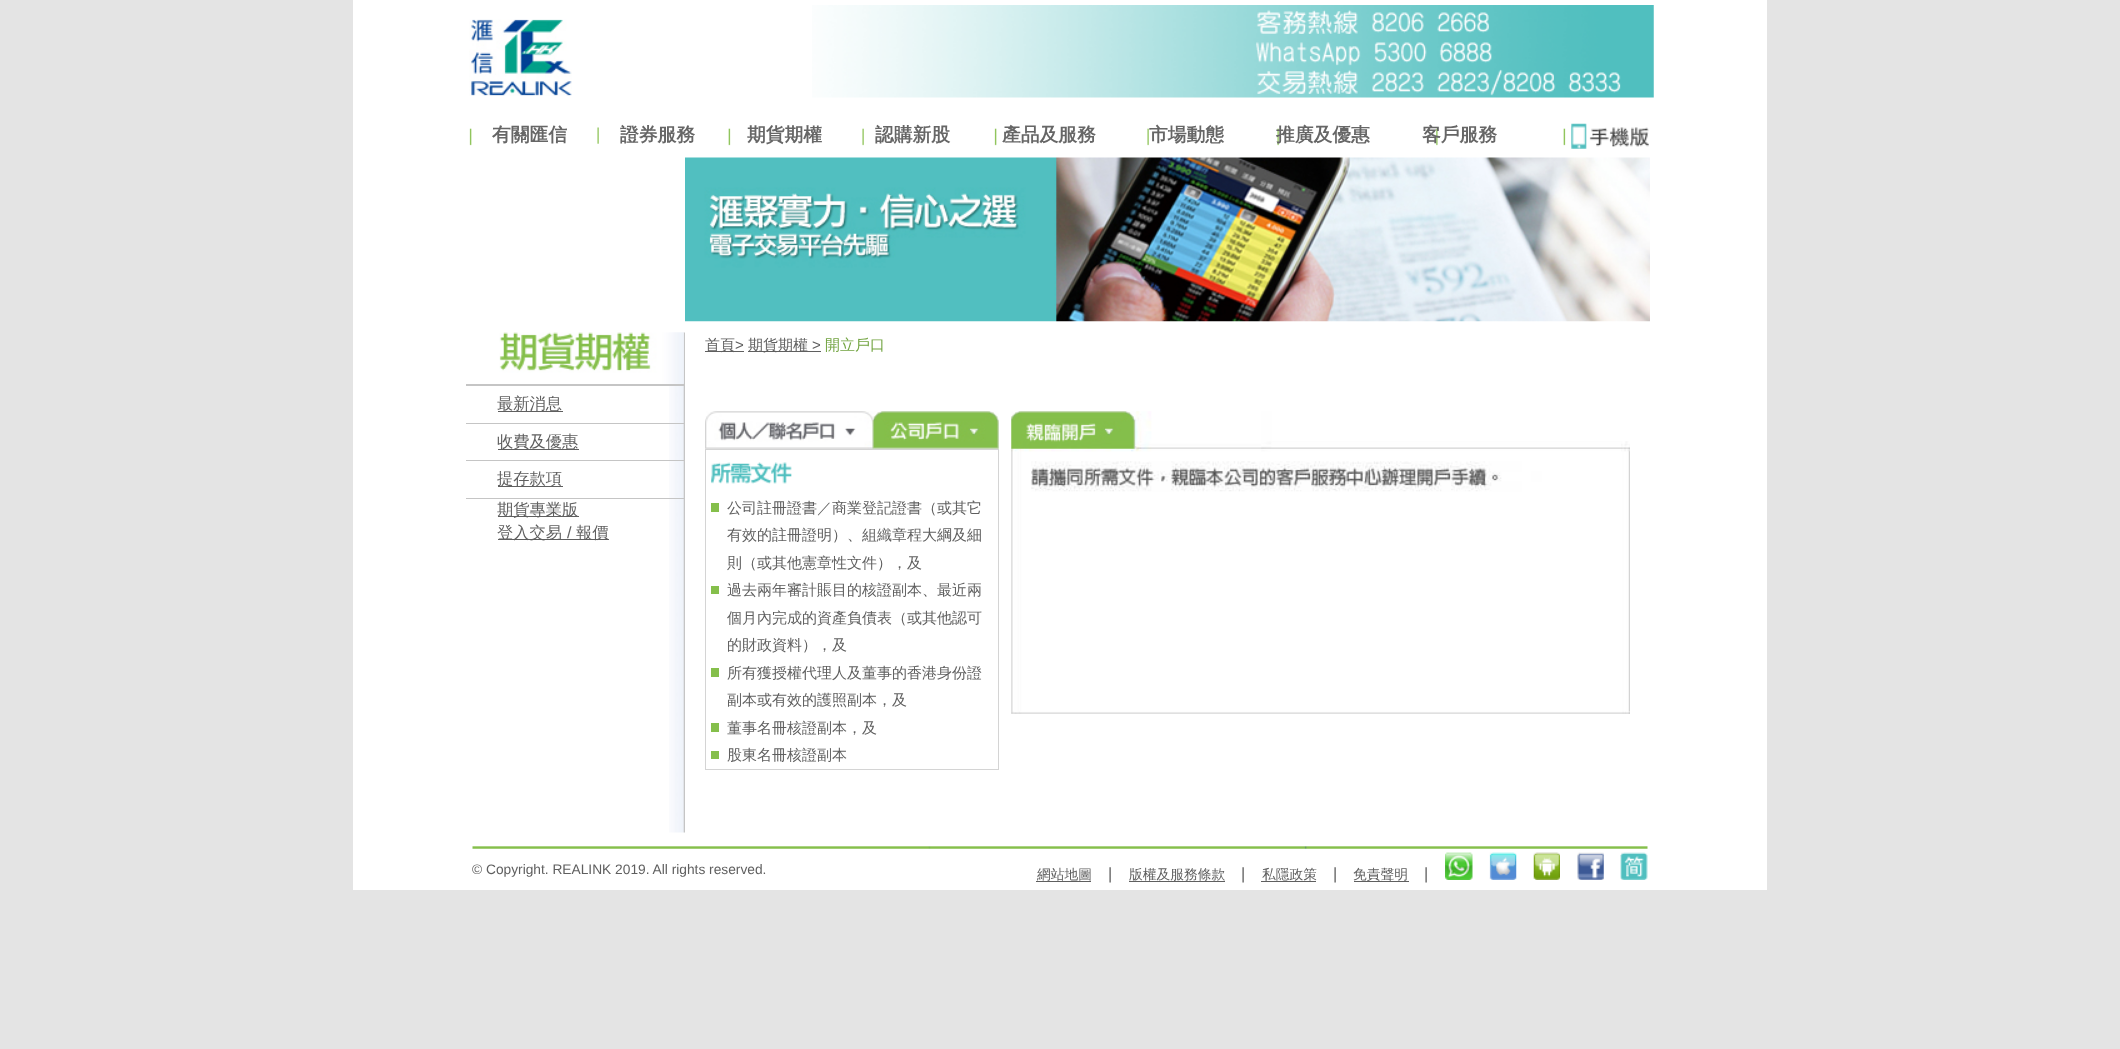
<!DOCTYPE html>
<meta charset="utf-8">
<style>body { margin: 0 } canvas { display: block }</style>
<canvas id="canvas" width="2120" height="1049"></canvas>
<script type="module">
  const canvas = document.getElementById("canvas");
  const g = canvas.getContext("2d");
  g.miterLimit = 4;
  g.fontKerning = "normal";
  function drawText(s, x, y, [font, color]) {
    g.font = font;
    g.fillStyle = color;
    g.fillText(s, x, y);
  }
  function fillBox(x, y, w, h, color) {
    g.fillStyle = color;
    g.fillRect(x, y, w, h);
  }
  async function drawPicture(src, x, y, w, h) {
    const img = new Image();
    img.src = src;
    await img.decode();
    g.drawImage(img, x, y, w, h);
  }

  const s1 = ["bold 18.75px WenQuanYi Zen Hei", "#666666"];
  const s2 = ["500 16.25px WenQuanYi Zen Hei", "#5F5F5F"];
  const s3 = ["16.25px Liberation Sans", "#5F5F5F"];
  const s4 = ["500 15px WenQuanYi Zen Hei", "#5F5F5F"];
  const s5 = ["15px Liberation Sans", "#5F5F5F"];
  const s6 = ["500 15px WenQuanYi Zen Hei", "#72A441"];
  const s7 = ["13.75px Liberation Sans", "#5F5F5F"];
  const s8 = ["500 13.75px WenQuanYi Zen Hei", "#5F5F5F"];

  fillBox(0, 0, 2120, 1049, "#E4E4E4");
  fillBox(353, 0, 113, 890, "#FFFFFF");
  fillBox(466, 0, 1301, 890, "#FFFFFF");
  await drawPicture("pic1.png", 469, 19, 103, 77);
  await drawPicture("pic2.png", 812, 5, 842, 93);
  await drawPicture("pic3.png", 469, 127, 1097, 19);
  drawText("有關匯信", 492, 141, s1);
  drawText("證券服務", 620, 141, s1);
  drawText("期貨期權", 747, 141, s1);
  drawText("認購新股", 875, 141, s1);
  drawText("產品及服務", 1002, 141, s1);
  drawText("市場動態", 1149, 141, s1);
  drawText("推廣及優惠", 1276, 141, s1);
  drawText("客戶服務", 1422, 141, s1);
  await drawPicture("pic4.png", 1571, 123, 78, 26);
  await drawPicture("pic5.png", 685, 157, 965, 165);
  await drawPicture("pic6.png", 669, 332, 16, 501);
  await drawPicture("pic7.png", 499, 332, 185, 52);
  fillBox(466, 384, 218, 2, "#C5C5C5");
  fillBox(498, 411, 65, 1, "#5F5F5F");
  drawText("最新消息", 497, 409, s2);
  fillBox(466, 423, 218, 1, "#C5C5C5");
  fillBox(498, 449, 81, 1, "#5F5F5F");
  drawText("收費及優惠", 497, 447, s2);
  fillBox(466, 460, 218, 1, "#C5C5C5");
  fillBox(498, 486, 65, 1, "#5F5F5F");
  drawText("提存款項", 497, 484, s2);
  fillBox(466, 498, 218, 1, "#C5C5C5");
  fillBox(498, 516, 81, 1, "#5F5F5F");
  drawText("期貨專業版", 497, 515, s2);
  fillBox(498, 539, 111, 1, "#5F5F5F");
  drawText("登入交易", 497, 538, s2);
  drawText("/", 567, 538, s3);
  drawText("報價", 576, 538, s2);
  fillBox(705, 351, 39, 1, "#5F5F5F");
  drawText("首頁", 705, 350, s4);
  drawText(">", 735, 350, s5);
  fillBox(748, 351, 73, 1, "#5F5F5F");
  drawText("期貨期權", 748, 350, s4);
  drawText(">", 812, 350, s5);
  drawText("開立戶口", 825, 350, s6);
  await drawPicture("pic8.png", 705, 411, 294, 38);
  fillBox(705, 449, 294, 321, "#D4D4D4");
  fillBox(706, 450, 292, 319, "#FFFFFF");
  await drawPicture("pic9.png", 711, 462, 81, 22);
  fillBox(711, 503, 8, 9, "#85BF4B");
  drawText("公司註冊證書／商業登記證書（或其它", 727, 513, s4);
  drawText("有效的註冊證明）、組織章程大綱及細", 727, 540, s4);
  drawText("則（或其他憲章性文件），及", 727, 568, s4);
  fillBox(711, 586, 8, 8, "#85BF4B");
  drawText("過去兩年審計賬目的核證副本、最近兩", 727, 595, s4);
  drawText("個月內完成的資產負債表（或其他認可", 727, 623, s4);
  drawText("的財政資料），及", 727, 650, s4);
  fillBox(711, 668, 8, 9, "#85BF4B");
  drawText("所有獲授權代理人及董事的香港身份證", 727, 678, s4);
  drawText("副本或有效的護照副本，及", 727, 705, s4);
  fillBox(711, 723, 8, 9, "#85BF4B");
  drawText("董事名冊核證副本，及", 727, 733, s4);
  fillBox(711, 751, 8, 8, "#85BF4B");
  drawText("股東名冊核證副本", 727, 760, s4);
  await drawPicture("pic10.png", 1011, 411, 619, 303);
  await drawPicture("pic11.png", 472, 846, 1176, 3);
  drawText("© Copyright. REALINK 2019. All rights reserved.", 472, 874, s7);
  drawText("網站地圖", 1037, 879, s8);
  fillBox(1036, 881, 55, 1, "#5F5F5F");
  drawText("|", 1108, 879, s3);
  drawText("版權及服務條款", 1129, 879, s8);
  fillBox(1129, 881, 96, 1, "#5F5F5F");
  drawText("|", 1241, 879, s3);
  drawText("私隱政策", 1262, 879, s8);
  fillBox(1261, 881, 55, 1, "#5F5F5F");
  drawText("|", 1333, 879, s3);
  fillBox(1354, 881, 55, 1, "#5F5F5F");
  drawText("免責聲明", 1353, 879, s8);
  drawText("|", 1424, 879, s3);
  await drawPicture("pic12.png", 1445, 852, 28, 28);
  await drawPicture("pic13.png", 1489, 852, 28, 28);
  await drawPicture("pic14.png", 1533, 852, 27, 28);
  await drawPicture("pic15.png", 1577, 852, 27, 28);
  await drawPicture("pic16.png", 1620, 852, 28, 28);
</script>
